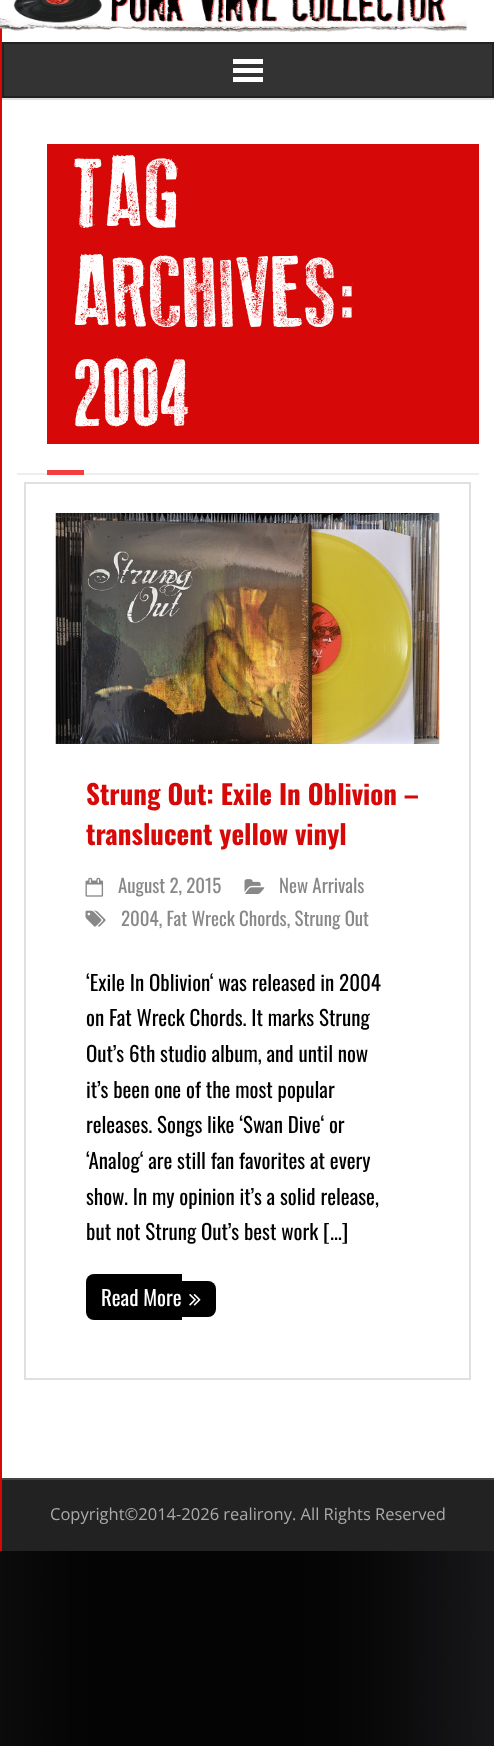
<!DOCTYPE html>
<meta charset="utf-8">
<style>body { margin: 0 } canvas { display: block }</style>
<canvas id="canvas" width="494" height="1746"></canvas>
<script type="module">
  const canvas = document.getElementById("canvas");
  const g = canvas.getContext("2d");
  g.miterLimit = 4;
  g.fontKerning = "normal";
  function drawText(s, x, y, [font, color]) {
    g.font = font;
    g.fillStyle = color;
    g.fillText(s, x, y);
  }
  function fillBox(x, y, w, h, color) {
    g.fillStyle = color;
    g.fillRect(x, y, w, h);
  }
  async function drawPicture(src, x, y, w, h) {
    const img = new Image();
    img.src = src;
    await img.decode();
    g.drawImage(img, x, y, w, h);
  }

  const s1 = ["99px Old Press", "#FFFFFF"];
  const s2 = ["bold 27px Oswald", "#D70808"];
  const s3 = ["18.9px Oswald", "#888888"];
  const s4 = ["21px Oswald", "#000000"];
  const s5 = ["21px Oswald", "#FFFFFF"];
  const s6 = ["16.5px Open Sans", "#AAAAAA"];

  fillBox(0, 0, 494, 1746, "#FFFFFF");
  await drawPicture("pic1.png", 0, 1551, 494, 195);
  fillBox(0, 28, 2, 1523, "#D70808");
  fillBox(2, 98, 492, 2, "#E0E0E0");
  await drawPicture("pic2.png", 0, 0, 467, 32);
  g.fillStyle = "#333333";
  g.beginPath();
  g.rect(3, 43, 490, 54);
  g.fill();
  g.strokeStyle = "#222222";
  g.lineWidth = 2;
  g.stroke();
  fillBox(233, 59, 30, 5, "#FFFFFF");
  fillBox(233, 68, 30, 5, "#FFFFFF");
  fillBox(233, 77, 30, 5, "#FFFFFF");
  fillBox(47, 144, 432, 300, "#D70808");
  drawText("TAG", 74, 228, s1);
  drawText("ARCHIVES:", 74, 327, s1);
  drawText("2004", 74, 426, s1);
  fillBox(17, 473, 462, 2, "#EEEEEE");
  fillBox(47, 470, 37, 5, "#F33F3F");
  g.strokeStyle = "#E0E0E0";
  g.strokeRect(25, 483, 445, 896);
  await drawPicture("pic3.png", 55, 513, 385, 231);
  drawText("Strung Out: Exile In Oblivion –", 86, 805, s2);
  drawText("translucent yellow vinyl", 86, 845, s2);
  await drawPicture("pic4.png", 85, 877, 19, 20);
  drawText("August 2, 2015", 118, 893, s3);
  await drawPicture("pic5.png", 244, 879, 21, 15);
  drawText("New Arrivals", 279, 893, s3);
  await drawPicture("pic6.png", 85, 910, 21, 17);
  drawText("2004, Fat Wreck Chords, Strung Out", 121, 926, s3);
  drawText("‘Exile In Oblivion‘ was released in 2004", 86, 991, s4);
  drawText("on Fat Wreck Chords. It marks Strung", 86, 1026, s4);
  drawText("Out’s 6th studio album, and until now", 86, 1062, s4);
  drawText("it’s been one of the most popular", 86, 1098, s4);
  drawText("releases. Songs like ‘Swan Dive‘ or", 86, 1133, s4);
  drawText("‘Analog‘ are still fan favorites at every", 86, 1169, s4);
  drawText("show. In my opinion it’s a solid release,", 86, 1205, s4);
  drawText("but not Strung Out’s best work […]", 86, 1240, s4);
  g.beginPath();
  g.roundRect(86, 1274, 96, 46, [8, 0, 0, 8]);
  g.fill();
  drawText("Read More", 101, 1306, s5);
  g.fillStyle = "#000000";
  g.beginPath();
  g.roundRect(182, 1281, 34, 36, [0, 8, 8, 0]);
  g.fill();
  await drawPicture("pic7.png", 189, 1294, 12, 12);
  fillBox(2, 1480, 492, 71, "#222222");
  fillBox(2, 1478, 492, 2, "#444444");
  drawText("Copyright©2014-2026 realirony. All Rights Reserved", 50, 1520, s6);
</script>
